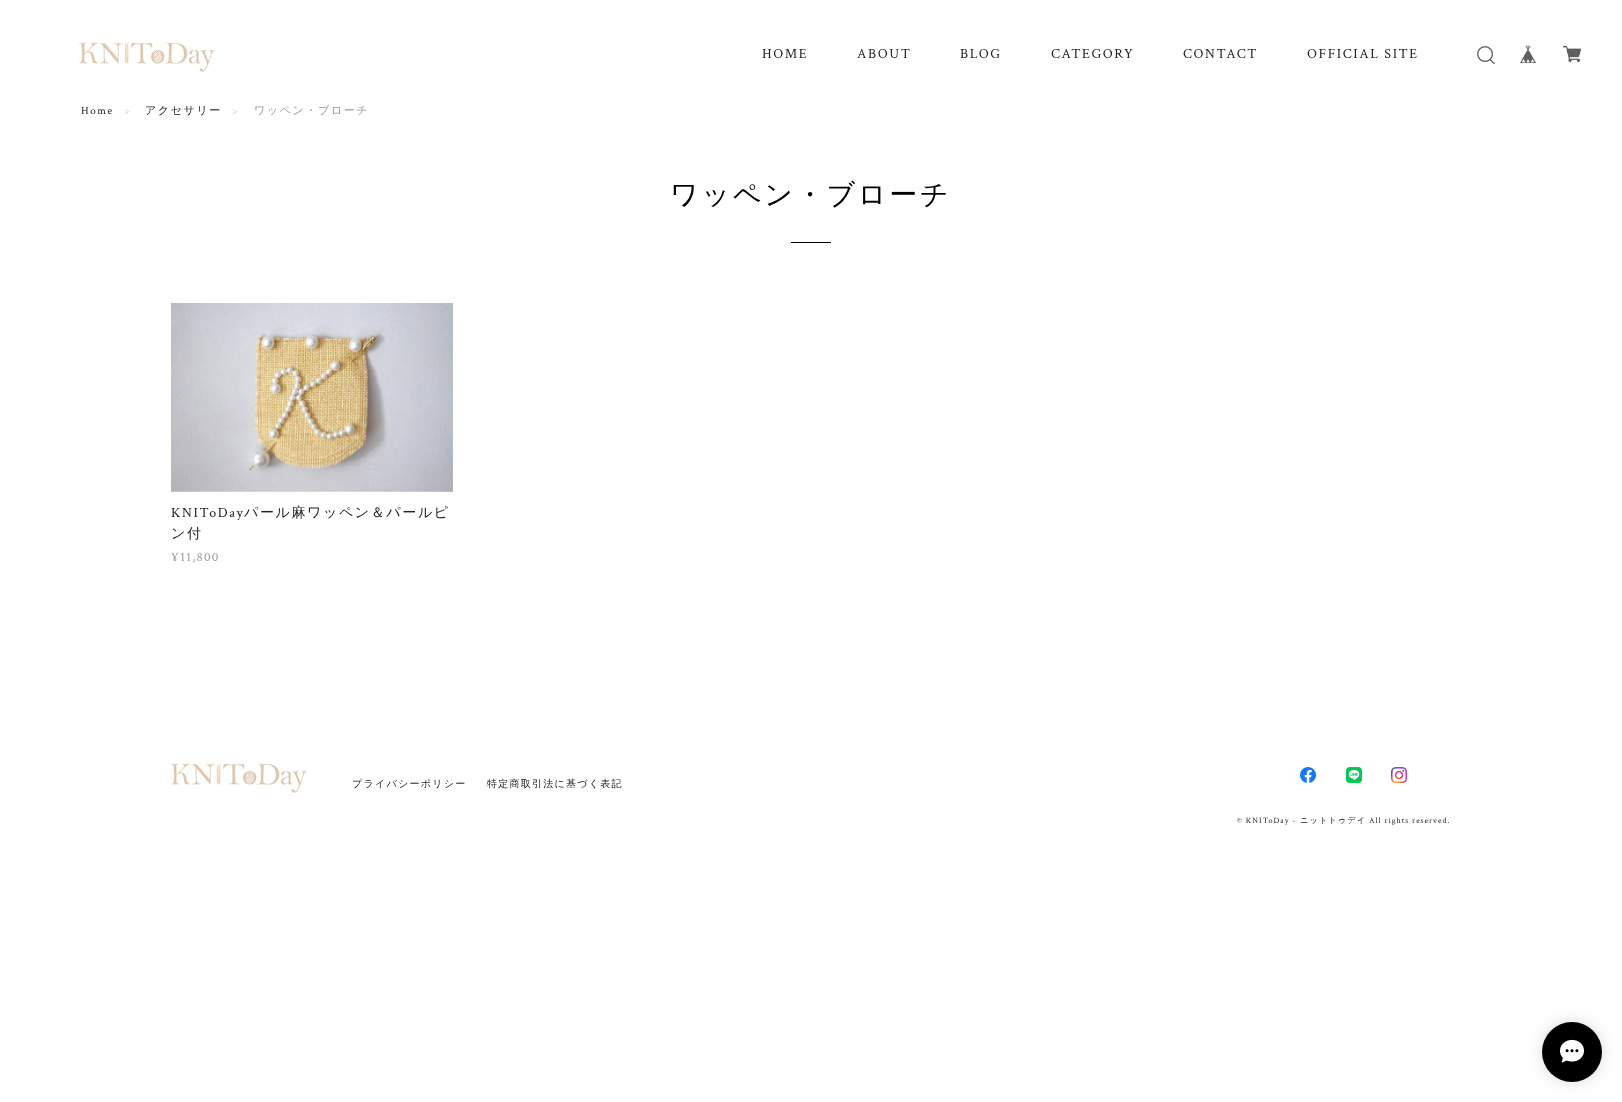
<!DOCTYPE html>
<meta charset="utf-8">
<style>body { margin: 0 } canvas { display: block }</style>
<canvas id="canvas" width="1622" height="1102"></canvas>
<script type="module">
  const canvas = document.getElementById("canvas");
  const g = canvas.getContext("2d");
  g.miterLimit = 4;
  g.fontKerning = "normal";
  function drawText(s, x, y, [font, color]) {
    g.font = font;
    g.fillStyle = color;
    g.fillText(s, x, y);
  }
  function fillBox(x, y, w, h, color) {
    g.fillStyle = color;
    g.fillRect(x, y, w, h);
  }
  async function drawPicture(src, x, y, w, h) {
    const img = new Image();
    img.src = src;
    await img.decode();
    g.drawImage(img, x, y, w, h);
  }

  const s1 = ["14px Crimson Text", "#222222"];
  const s2 = ["11px Crimson Text", "#222222"];
  const s3 = ["11px Crimson Text", "#CCCCCC"];
  const s4 = ["500 11px WenQuanYi Zen Hei", "#222222"];
  const s5 = ["500 11px WenQuanYi Zen Hei", "#999999"];
  const s6 = ["500 28px WenQuanYi Zen Hei", "#000000"];
  const s7 = ["500 14px WenQuanYi Zen Hei", "#222222"];
  const s8 = ["13px Crimson Text", "#999999"];
  const s9 = ["500 10px WenQuanYi Zen Hei", "#222222"];
  const s10 = ["8.25px Crimson Text", "#222222"];
  const s11 = ["500 8.25px WenQuanYi Zen Hei", "#222222"];

  fillBox(0, 0, 1622, 1102, "#FFFFFF");
  await drawPicture("pic1.png", 79, 42, 136, 30);
  g.letterSpacing = "1.6px";
  drawText("HOME", 762, 58, s1);
  drawText("ABOUT", 857, 58, s1);
  drawText("BLOG", 960, 58, s1);
  drawText("CATEGORY", 1051, 58, s1);
  drawText("CONTACT", 1183, 58, s1);
  drawText("OFFICIAL SITE", 1307, 58, s1);
  await drawPicture("pic2.png", 1477, 46, 18, 19);
  await drawPicture("pic3.png", 1519, 45, 18, 18);
  await drawPicture("pic4.png", 1563, 45, 18, 18);
  drawText("Home", 81, 114, s2);
  drawText(">", 124, 114, s3);
  drawText("アクセサリー", 145, 114, s4);
  drawText(">", 232, 114, s3);
  drawText("ワッペン・ブローチ", 254, 114, s5);
  g.letterSpacing = "2.75px";
  drawText("ワッペン・ブローチ", 670, 204, s6);
  fillBox(791, 242, 40, 1, "#000000");
  await drawPicture("pic5.png", 171, 303, 282, 189);
  g.letterSpacing = "1.6px";
  drawText("KNIToDay", 171, 517, s1);
  drawText("パール麻ワッペン＆パールピ", 244, 517, s7);
  drawText("ン付", 171, 538, s7);
  g.letterSpacing = "1.25px";
  drawText("¥11,800", 171, 561, s8);
  await drawPicture("pic1.png", 171, 763, 136, 30);
  drawText("プライバシーポリシー", 352, 787, s9);
  drawText("特定商取引法に基づく表記", 487, 787, s9);
  await drawPicture("pic6.png", 1300, 767, 16, 16);
  await drawPicture("pic7.png", 1346, 767, 16, 16);
  await drawPicture("pic8.png", 1391, 767, 16, 16);
  g.letterSpacing = "1px";
  drawText("© KNIToDay -", 1237, 823, s10);
  drawText("ニットトゥデイ", 1300, 823, s11);
  drawText("All rights reserved.", 1369, 823, s10);
  g.fillStyle = "rgba(51, 66, 88, 0.2)";
  g.filter = "blur(7.5px)";
  g.beginPath();
  g.roundRect(1542, 1022, 60, 60, 30);
  g.fill();
  g.filter = "none";
  g.fillStyle = "#000000";
  g.beginPath();
  g.arc(1572, 1052, 30, 0, Math.PI * 2);
  g.fill();
  await drawPicture("pic9.png", 1560, 1039, 24, 24);
</script>
